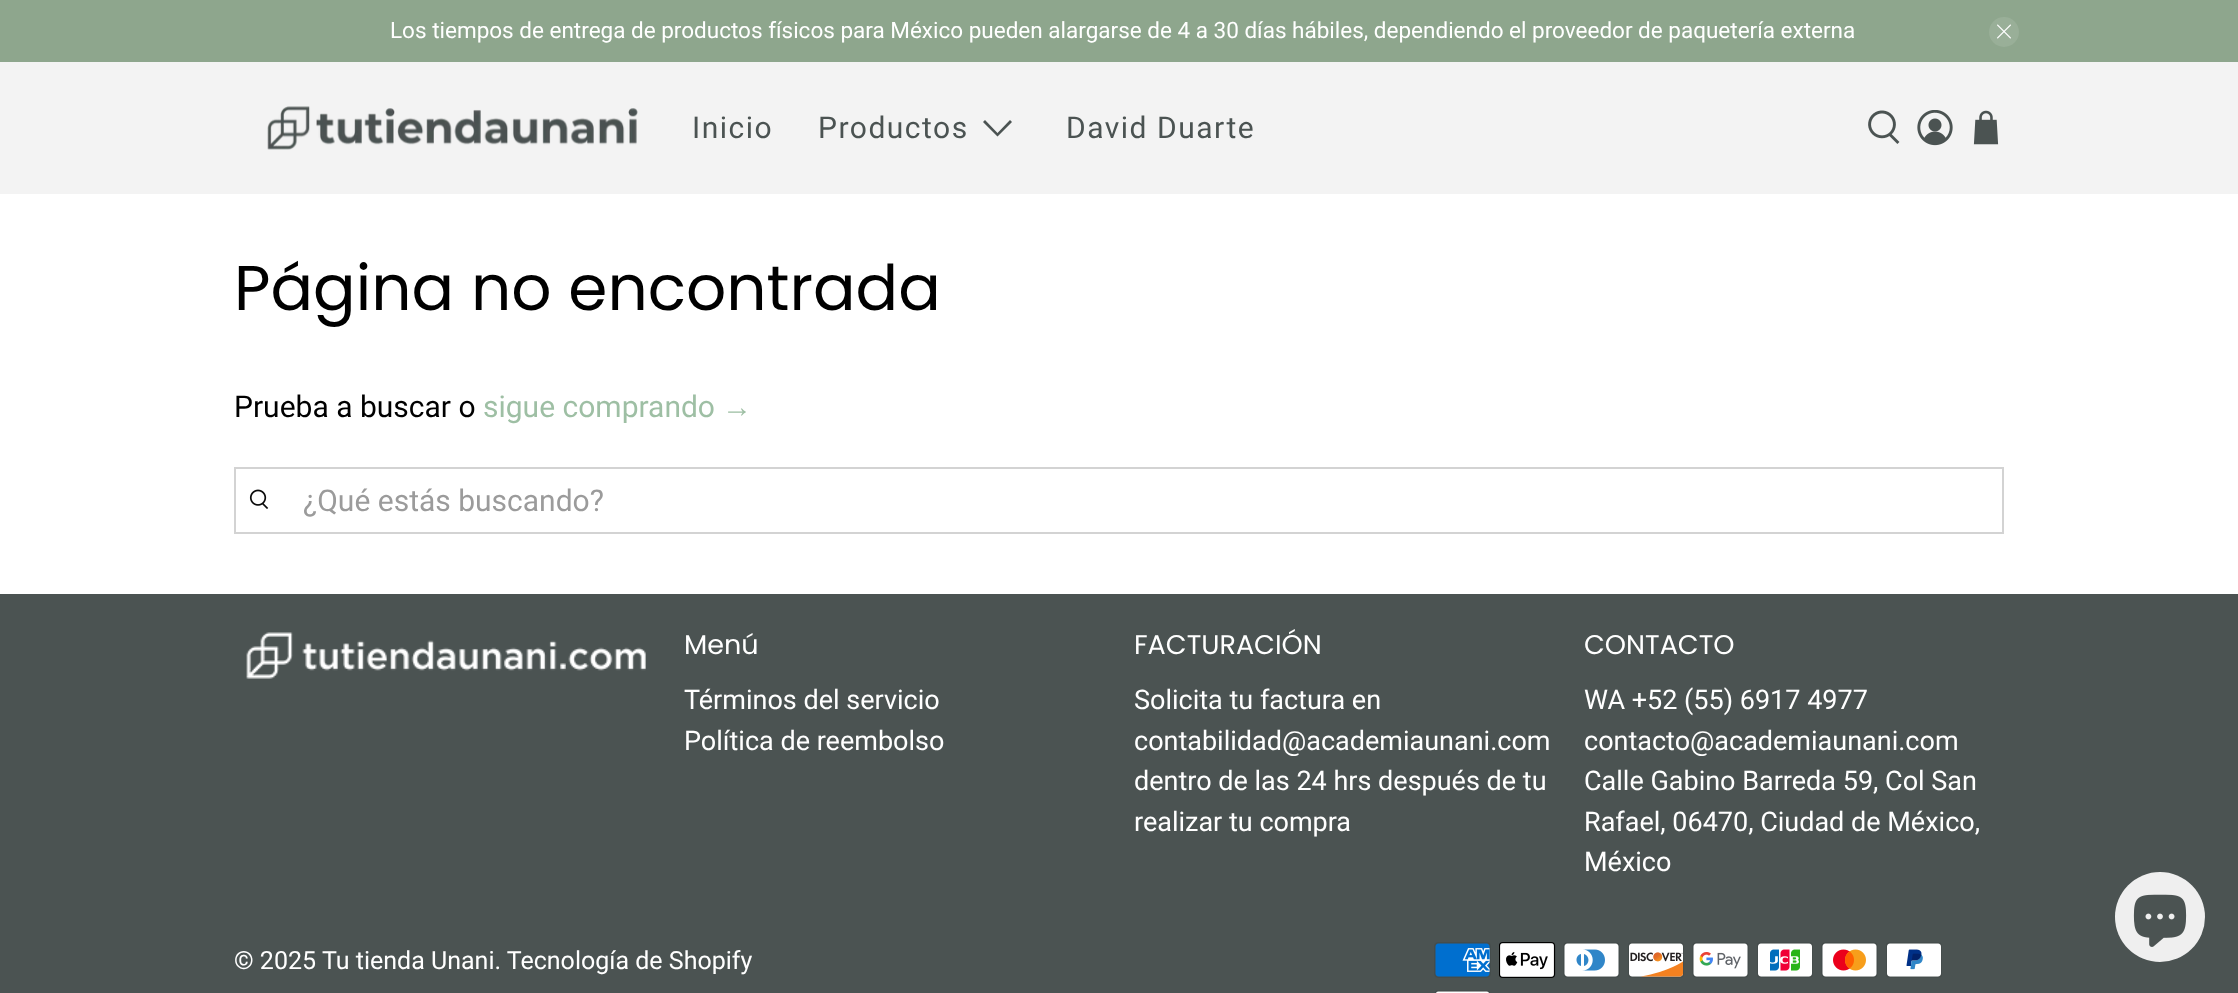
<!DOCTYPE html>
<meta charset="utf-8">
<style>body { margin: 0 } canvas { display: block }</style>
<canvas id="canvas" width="2238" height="993"></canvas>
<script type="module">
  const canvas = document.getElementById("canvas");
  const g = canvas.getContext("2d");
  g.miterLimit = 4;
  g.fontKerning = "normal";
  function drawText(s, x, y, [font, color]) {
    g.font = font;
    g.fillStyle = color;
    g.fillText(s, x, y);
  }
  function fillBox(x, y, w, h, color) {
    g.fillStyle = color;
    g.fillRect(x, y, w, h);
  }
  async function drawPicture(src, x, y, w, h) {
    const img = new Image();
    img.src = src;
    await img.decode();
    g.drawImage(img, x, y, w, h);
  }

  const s1 = ["22.5px Roboto", "#FFFFFF"];
  const s2 = ["30px Roboto", "#4B5352"];
  const s3 = ["63px Poppins", "#000000"];
  const s4 = ["30px Roboto", "#000000"];
  const s5 = ["30px Roboto", "#9EBFA4"];
  const s6 = ["30px Liberation Sans", "#9EBFA4"];
  const s7 = ["30px Roboto", "#9B9B9B"];
  const s8 = ["27px Poppins", "#FFFFFF"];
  const s9 = ["27px Roboto", "#FFFFFF"];
  const s10 = ["25px Roboto", "#FFFFFF"];

  fillBox(0, 0, 2238, 993, "#FFFFFF");
  fillBox(0, 0, 2238, 62, "#8EA68D");
  drawText("Los tiempos de entrega de productos físicos para México pueden alargarse de 4 a 30 días hábiles, dependiendo el proveedor de paquetería externa", 390, 38, s1);
  g.fillStyle = "#99AF98";
  g.beginPath();
  g.arc(2004, 32, 15, 0, Math.PI * 2);
  g.fill();
  await drawPicture("pic1.png", 1997, 24, 14, 15);
  fillBox(0, 62, 2238, 132, "#F3F3F3");
  await drawPicture("pic2.png", 267, 106, 371, 44);
  g.letterSpacing = "1.5px";
  drawText("Inicio", 692, 138, s2);
  drawText("Productos", 818, 138, s2);
  g.beginPath();
  g.moveTo(997.5, 136.5);
  g.lineTo(983, 122);
  g.lineTo(985, 120);
  g.lineTo(997.5, 133);
  g.lineTo(1010, 120);
  g.lineTo(1012, 122);
  g.closePath();
  g.fill();
  drawText("David Duarte", 1066, 138, s2);
  await drawPicture("pic3.png", 1868, 110, 32, 34);
  await drawPicture("pic4.png", 1917, 110, 36, 36);
  await drawPicture("pic5.png", 1973, 110, 26, 35);
  g.letterSpacing = "0px";
  drawText("Página no encontrada", 234, 310, s3);
  drawText("Prueba a buscar o", 234, 417, s4);
  drawText("sigue comprando", 483, 417, s5);
  drawText("→", 722, 417, s6);
  g.strokeStyle = "#D3D3D3";
  g.lineWidth = 2;
  g.strokeRect(235, 468, 1768, 65);
  await drawPicture("pic6.png", 249, 489, 20, 20);
  drawText("¿Qué estás buscando?", 303, 511, s7);
  fillBox(0, 594, 2238, 399, "#4B5352");
  await drawPicture("pic7.png", 246, 632, 400, 47);
  drawText("Menú", 684, 654, s8);
  drawText("Términos del servicio", 684, 709, s9);
  drawText("Política de reembolso", 684, 750, s9);
  drawText("FACTURACIÓN", 1134, 654, s8);
  drawText("Solicita tu factura en", 1134, 709, s9);
  drawText("contabilidad@academiaunani.com", 1134, 750, s9);
  drawText("dentro de las 24 hrs después de tu", 1134, 790, s9);
  drawText("realizar tu compra", 1134, 831, s9);
  drawText("CONTACTO", 1584, 654, s8);
  drawText("WA +52 (55) 6917 4977", 1584, 709, s9);
  drawText("contacto@academiaunani.com", 1584, 750, s9);
  drawText("Calle Gabino Barreda 59, Col San", 1584, 790, s9);
  drawText("Rafael, 06470, Ciudad de México,", 1584, 831, s9);
  drawText("México", 1584, 871, s9);
  drawText("© 2025", 234, 969, s10);
  drawText("Tu tienda Unani. Tecnología de Shopify", 322, 969, s10);
  await drawPicture("pic8.png", 1434, 942, 57, 36);
  await drawPicture("pic9.png", 1499, 942, 57, 36);
  await drawPicture("pic10.png", 1563, 942, 57, 36);
  await drawPicture("pic11.png", 1628, 942, 56, 36);
  await drawPicture("pic12.png", 1692, 942, 57, 36);
  await drawPicture("pic13.png", 1757, 942, 56, 36);
  await drawPicture("pic14.png", 1821, 942, 57, 36);
  await drawPicture("pic15.png", 1886, 942, 56, 36);
  await drawPicture("pic16.png", 1435, 990, 55, 3);
  g.fillStyle = "#EFEFEF";
  g.beginPath();
  g.arc(2160, 917, 45, 0, Math.PI * 2);
  g.fill();
  await drawPicture("pic17.png", 2133, 894, 54, 53);
</script>
